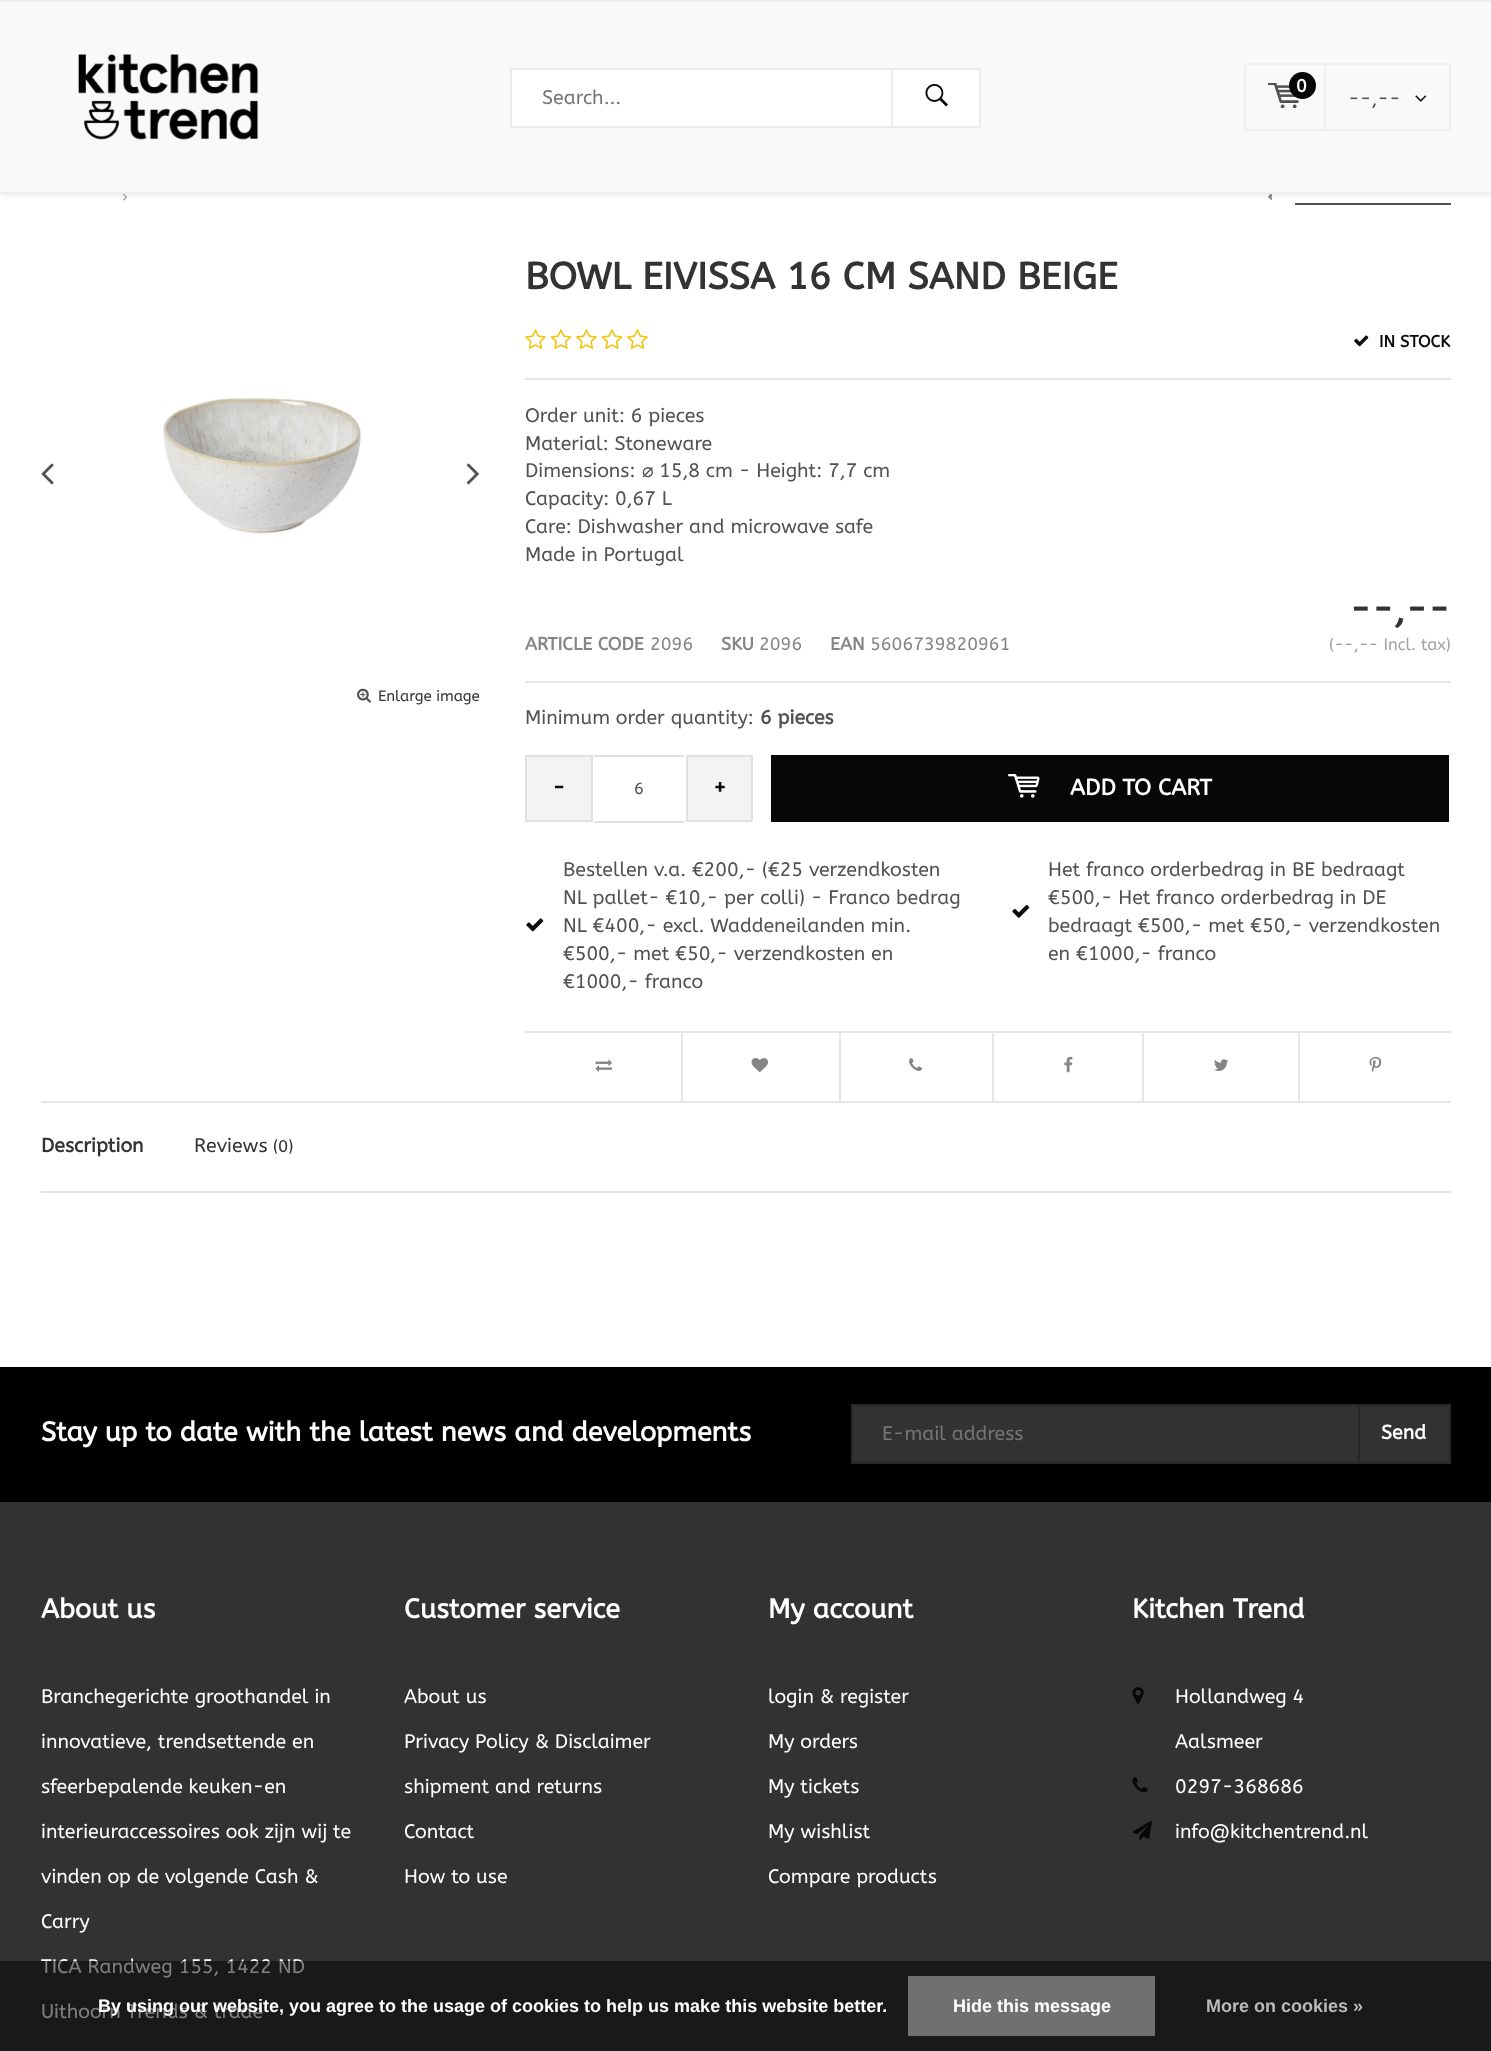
<!DOCTYPE html>
<meta charset="utf-8">
<style>body { margin: 0 } canvas { display: block }</style>
<canvas id="canvas" width="1491" height="2051"></canvas>
<script type="module">
  const canvas = document.getElementById("canvas");
  const g = canvas.getContext("2d");
  g.miterLimit = 4;
  g.fontKerning = "normal";
  function drawText(s, x, y, [font, color]) {
    g.font = font;
    g.fillStyle = color;
    g.fillText(s, x, y);
  }
  function fillBox(x, y, w, h, color) {
    g.fillStyle = color;
    g.fillRect(x, y, w, h);
  }
  async function drawPicture(src, x, y, w, h) {
    const img = new Image();
    img.src = src;
    await img.decode();
    g.drawImage(img, x, y, w, h);
  }

  const s1 = ["19.5px ABeeZee", "#757575"];
  const s2 = ["bold 18px ABeeZee", "#FFFFFF"];
  const s3 = ["19.5px ABeeZee", "#525252"];
  const s4 = ["15px ABeeZee", "#333333"];
  const s5 = ["bold 37.5px ABeeZee", "#333333"];
  const s6 = ["bold 16.5px ABeeZee", "#0C0C0C"];
  const s7 = ["19.5px DejaVu Sans", "#525252"];
  const s8 = ["bold 18px ABeeZee", "#858585"];
  const s9 = ["18px ABeeZee", "#858585"];
  const s10 = ["16.5px ABeeZee", "#A2A2A2"];
  const s11 = ["bold 19.5px ABeeZee", "#525252"];
  const s12 = ["bold 22.5px ABeeZee", "#0C0C0C"];
  const s13 = ["16.5px ABeeZee", "#525252"];
  const s14 = ["bold 22.5px ABeeZee", "#FFFFFF"];
  const s15 = ["bold 19.5px ABeeZee", "#333333"];
  const s16 = ["19.5px ABeeZee", "#333333"];
  const s17 = ["17px ABeeZee", "#333333"];
  const s18 = ["bold 27px ABeeZee", "#FFFFFF"];
  const s19 = ["bold 19.5px ABeeZee", "#FFFFFF"];
  const s20 = ["19.5px ABeeZee", "#FFFFFF"];
  const s21 = ["bold 18px Liberation Sans", "#FFFFFF"];
  const s22 = ["bold 18px Liberation Sans", "#BABABA"];

  fillBox(0, 0, 1491, 2051, "#FFFFFF");
  await drawPicture("pic5.png", 123, 194, 4, 7);
  await drawPicture("pic6.png", 1268, 194, 4, 7);
  fillBox(1295, 203, 156, 2, "#525252");
  g.fillStyle = "rgba(0, 0, 0, 0.2)";
  g.filter = "blur(4px)";
  g.beginPath();
  g.rect(2, 2, 1488, 190);
  g.fill();
  g.filter = "none";
  fillBox(0, 2, 1491, 190, "#F9F9F9");
  fillBox(0, 0, 1491, 2, "#EFEFEF");
  fillBox(0, 192, 1491, 2, "#EFEFEF");
  await drawPicture("pic1.png", 78, 54, 181, 86);
  g.fillStyle = "#FFFFFF";
  g.beginPath();
  g.rect(511, 69, 469, 58);
  g.fill();
  g.strokeStyle = "#EBEBEB";
  g.lineWidth = 2;
  g.stroke();
  drawText("Search...", 542, 104, s1);
  fillBox(891, 68, 2, 60, "#EBEBEB");
  await drawPicture("pic2.png", 925, 84, 23, 23);
  g.strokeStyle = "#EFEFEF";
  g.strokeRect(1245, 64, 80, 66);
  await drawPicture("pic3.png", 1268, 83, 31, 25);
  g.fillStyle = "#070707";
  g.beginPath();
  g.arc(1302.5, 85.5, 13.5, 0, Math.PI * 2);
  g.fill();
  drawText("0", 1296, 92, s2);
  fillBox(1326, 63, 125, 2, "#EFEFEF");
  fillBox(1449, 63, 2, 68, "#EFEFEF");
  fillBox(1326, 129, 125, 2, "#EFEFEF");
  drawText("--,--", 1348, 105, s3);
  await drawPicture("pic4.png", 1415, 95, 12, 7);
  await drawPicture("pic7.png", 41, 463, 13, 22);
  await drawPicture("pic8.png", 466, 463, 13, 22);
  await drawPicture("pic9.png", 163, 398, 198, 137);
  await drawPicture("pic10.png", 357, 688, 14, 15);
  drawText("Enlarge image", 378, 701, s4);
  drawText("BOWL EIVISSA 16 CM SAND BEIGE", 525, 289, s5);
  fillBox(525, 378, 926, 2, "#E6E6E6");
  await drawPicture("pic11.png", 525, 329, 21, 20);
  await drawPicture("pic12.png", 550, 329, 22, 20);
  await drawPicture("pic11.png", 576, 329, 21, 20);
  await drawPicture("pic12.png", 601, 329, 22, 20);
  await drawPicture("pic11.png", 627, 329, 21, 20);
  await drawPicture("pic13.png", 1354, 335, 15, 12);
  drawText("IN STOCK", 1379, 347, s6);
  drawText("Order unit: 6 pieces", 525, 422, s3);
  drawText("Material: Stoneware", 525, 450, s3);
  drawText("Dimensions:", 525, 477, s3);
  drawText("⌀", 642, 477, s7);
  drawText("15,8 cm - Height: 7,7 cm", 659, 477, s3);
  drawText("Capacity: 0,67 L", 525, 505, s3);
  drawText("Care: Dishwasher and microwave safe", 525, 533, s3);
  drawText("Made in Portugal", 525, 561, s3);
  fillBox(525, 681, 926, 2, "#E6E6E6");
  drawText("ARTICLE CODE", 525, 650, s8);
  drawText("2096", 650, 650, s9);
  drawText("SKU", 721, 650, s8);
  drawText("2096", 759, 650, s9);
  drawText("EAN", 830, 650, s8);
  drawText("5606739820961", 870, 650, s9);
  drawText("--,--", 1349, 622, s5);
  drawText("(--,-- Incl. tax)", 1329, 650, s10);
  drawText("Minimum order quantity:", 525, 724, s3);
  drawText("6 pieces", 760, 724, s11);
  g.fillStyle = "#F3F3F3";
  g.beginPath();
  g.rect(526, 756, 66, 65);
  g.fill();
  g.strokeStyle = "#E1E1E1";
  g.stroke();
  drawText("-", 552, 795, s12);
  fillBox(594, 755, 90, 2, "#E1E1E1");
  fillBox(594, 821, 90, 2, "#E1E1E1");
  drawText("6", 634, 794, s13);
  g.fillStyle = "#F3F3F3";
  g.beginPath();
  g.rect(687, 756, 65, 65);
  g.fill();
  g.stroke();
  drawText("+", 713, 795, s12);
  fillBox(771, 755, 678, 67, "#070707");
  await drawPicture("pic14.png", 1008, 774, 32, 24);
  drawText("ADD TO CART", 1070, 795, s14);
  fillBox(525, 1031, 926, 2, "#E6E6E6");
  await drawPicture("pic15.png", 526, 918, 18, 14);
  drawText("Bestellen v.a. €200,- (€25 verzendkosten", 563, 876, s3);
  drawText("NL pallet- €10,- per colli) - Franco bedrag", 563, 904, s3);
  drawText("NL €400,- excl. Waddeneilanden min.", 563, 932, s3);
  drawText("€500,- met €50,- verzendkosten en", 563, 960, s3);
  drawText("€1000,- franco", 563, 988, s3);
  await drawPicture("pic16.png", 1012, 904, 18, 14);
  drawText("Het franco orderbedrag in BE bedraagt", 1048, 876, s3);
  drawText("€500,- Het franco orderbedrag in DE", 1048, 904, s3);
  drawText("bedraagt €500,- met €50,- verzendkosten", 1048, 932, s3);
  drawText("en €1000,- franco", 1048, 960, s3);
  fillBox(681, 1032, 2, 69, "#E6E6E6");
  await drawPicture("pic17.png", 595, 1059, 17, 13);
  fillBox(839, 1032, 2, 69, "#E6E6E6");
  await drawPicture("pic18.png", 751, 1058, 17, 15);
  fillBox(992, 1032, 2, 69, "#E6E6E6");
  await drawPicture("pic19.png", 909, 1058, 13, 13);
  fillBox(1142, 1032, 2, 69, "#E6E6E6");
  await drawPicture("pic20.png", 1064, 1056, 9, 17);
  fillBox(1298, 1032, 2, 69, "#E6E6E6");
  await drawPicture("pic21.png", 1214, 1059, 15, 12);
  await drawPicture("pic22.png", 1369, 1056, 13, 17);
  fillBox(41, 1101, 1410, 2, "#E6E6E6");
  fillBox(41, 1191, 1410, 2, "#E1E1E1");
  drawText("Description", 41, 1152, s15);
  drawText("Reviews", 194, 1152, s16);
  drawText("(0)", 273, 1152, s17);
  fillBox(0, 1502, 1491, 549, "#323232");
  fillBox(0, 1367, 1491, 135, "#000000");
  drawText("Stay up to date with the latest news and developments", 41, 1441, s18);
  fillBox(853, 1406, 505, 56, "#323232");
  g.strokeStyle = "#282828";
  g.strokeRect(852, 1405, 598, 58);
  drawText("E-mail address", 882, 1440, s1);
  g.fillStyle = "#323232";
  g.beginPath();
  g.rect(1359, 1405, 91, 58);
  g.fill();
  g.stroke();
  drawText("Send", 1381, 1439, s19);
  drawText("About us", 41, 1618, s18);
  drawText("Branchegerichte groothandel in", 41, 1703, s20);
  drawText("innovatieve, trendsettende en", 41, 1748, s20);
  drawText("sfeerbepalende keuken-en", 41, 1793, s20);
  drawText("interieuraccessoires ook zijn wij te", 41, 1838, s20);
  drawText("vinden op de volgende Cash &", 41, 1883, s20);
  drawText("Carry", 41, 1928, s20);
  drawText("TICA Randweg 155, 1422 ND", 41, 1973, s20);
  drawText("Uithoorn Trends & trade", 41, 2018, s20);
  drawText("Customer service", 404, 1618, s18);
  drawText("About us", 404, 1703, s20);
  drawText("Privacy Policy & Disclaimer", 404, 1748, s20);
  drawText("shipment and returns", 404, 1793, s20);
  drawText("Contact", 404, 1838, s20);
  drawText("How to use", 404, 1883, s20);
  drawText("My account", 768, 1618, s18);
  drawText("login & register", 768, 1703, s20);
  drawText("My orders", 768, 1748, s20);
  drawText("My tickets", 768, 1793, s20);
  drawText("My wishlist", 768, 1838, s20);
  drawText("Compare products", 768, 1883, s20);
  drawText("Kitchen Trend", 1132, 1618, s18);
  await drawPicture("pic23.png", 1132, 1687, 12, 17);
  drawText("Hollandweg 4", 1175, 1703, s20);
  drawText("Aalsmeer", 1175, 1748, s20);
  await drawPicture("pic24.png", 1132, 1777, 16, 16);
  drawText("0297-368686", 1175, 1793, s20);
  await drawPicture("pic25.png", 1132, 1820, 20, 21);
  drawText("info@kitchentrend.nl", 1175, 1838, s20);
  fillBox(0, 1961, 1491, 90, "rgba(0, 0, 0, 0.5)");
  drawText("By using our website, you agree to the usage of cookies to help us make this website better.", 98, 2012, s21);
  fillBox(908, 1976, 247, 60, "#707070");
  drawText("Hide this message", 953, 2012, s21);
  drawText("More on cookies »", 1206, 2012, s22);
</script>
